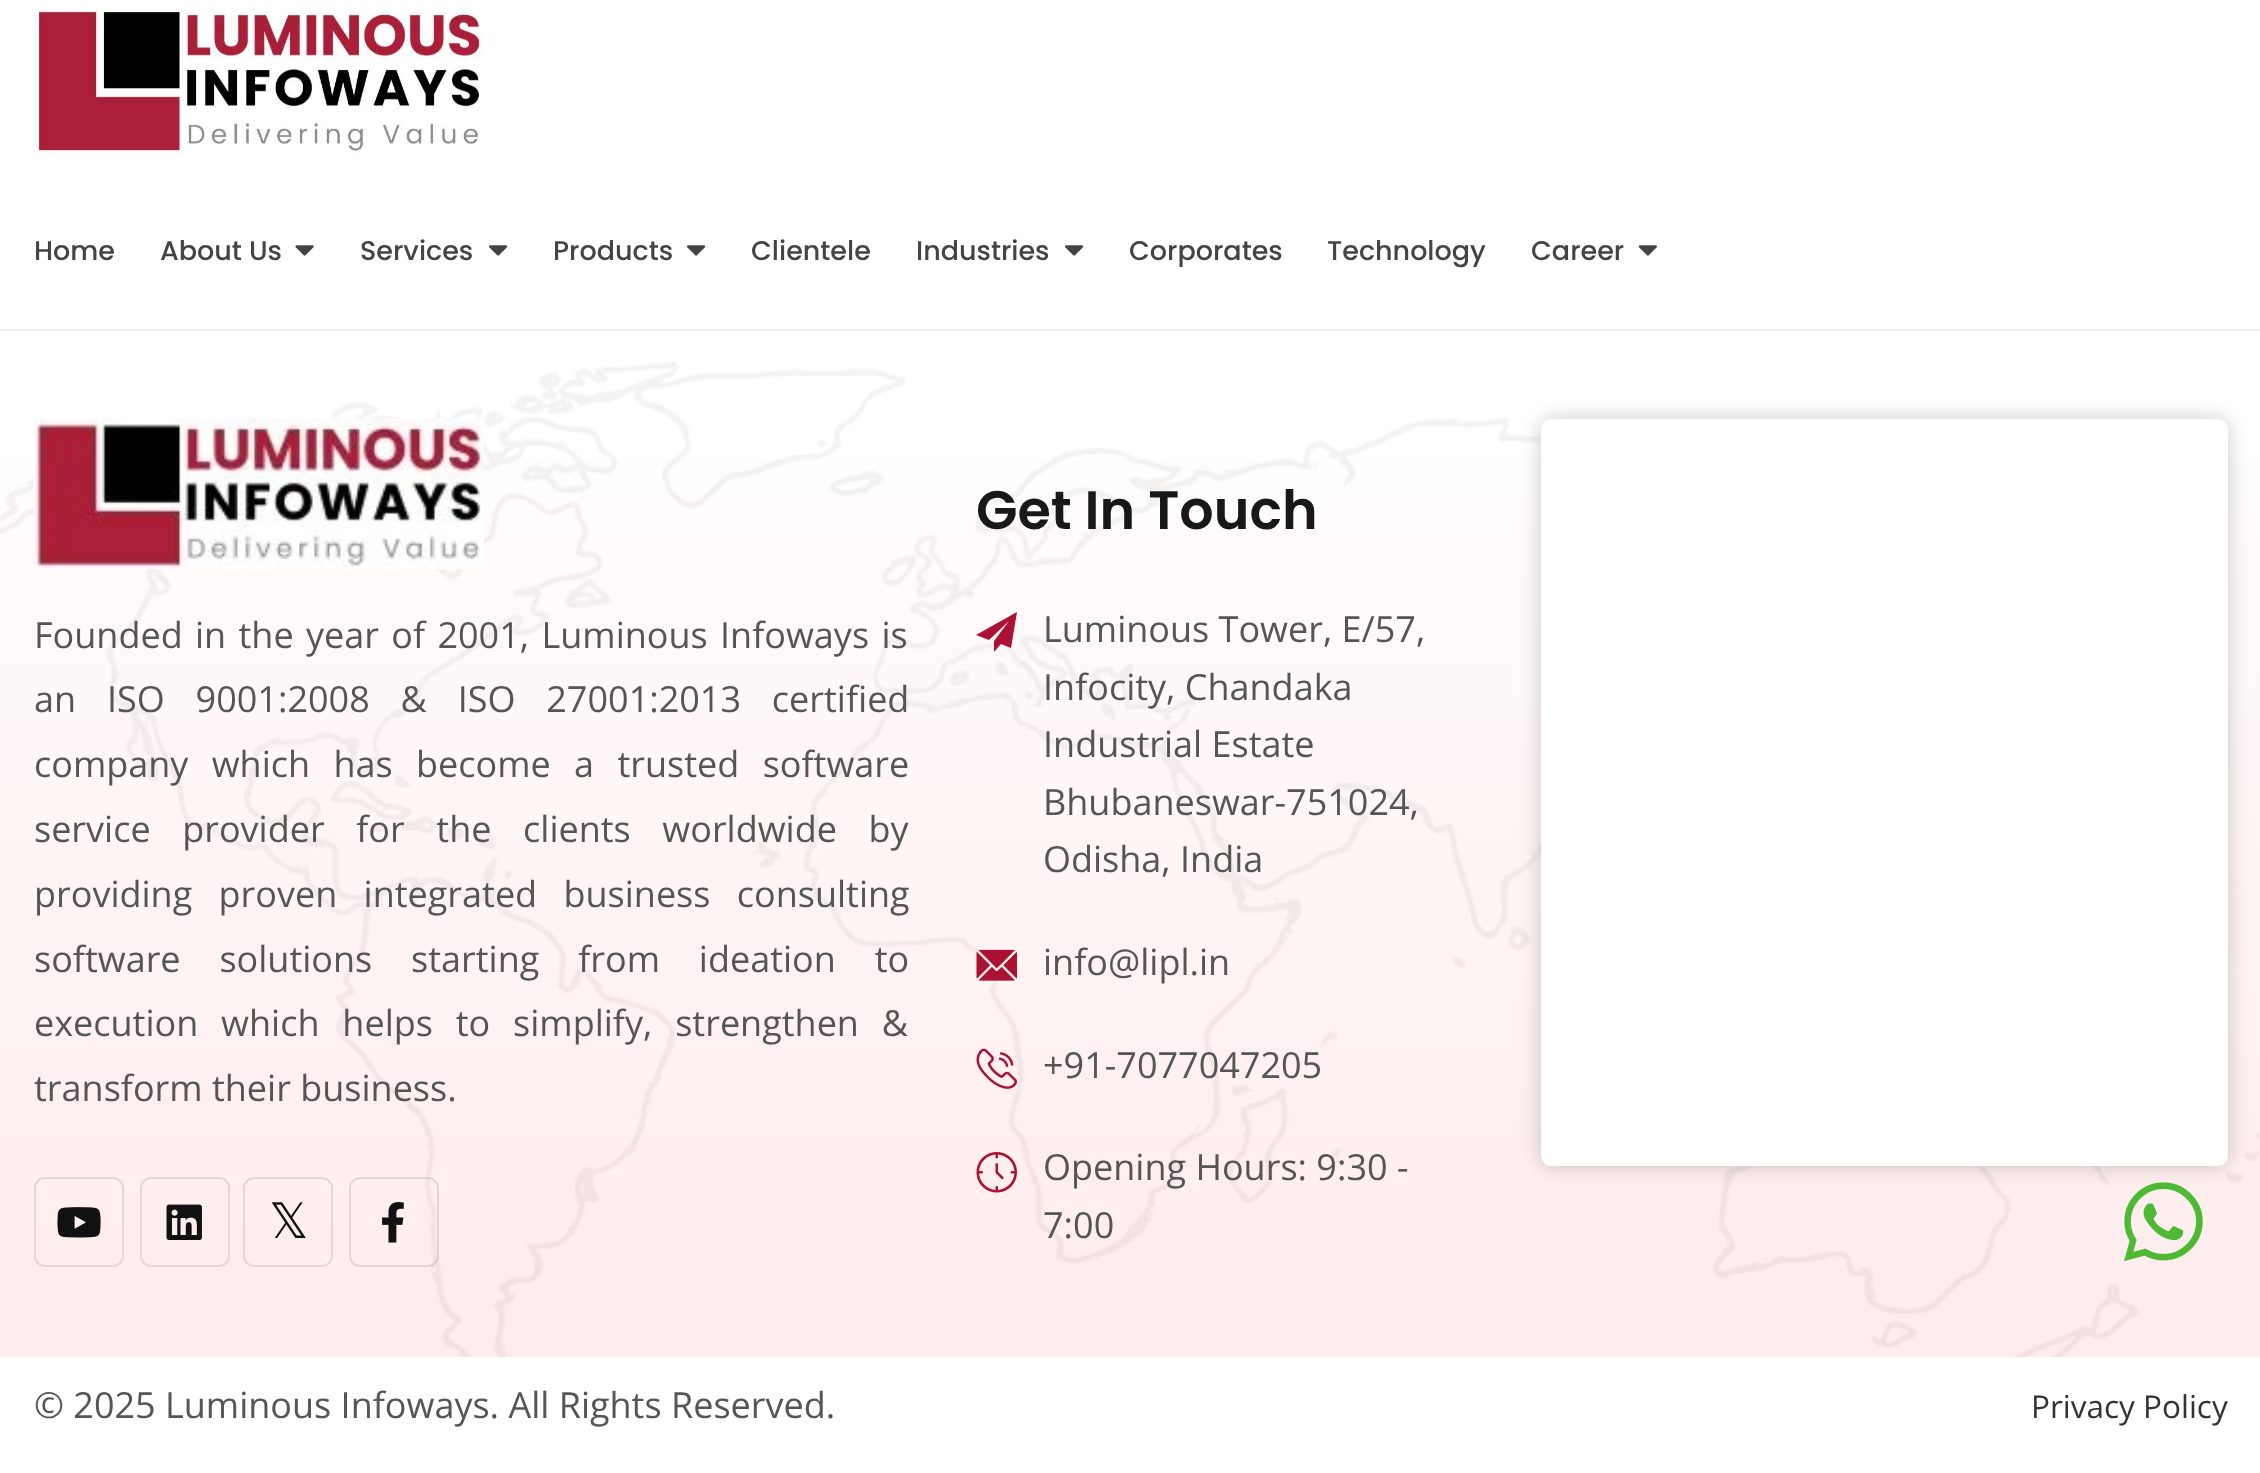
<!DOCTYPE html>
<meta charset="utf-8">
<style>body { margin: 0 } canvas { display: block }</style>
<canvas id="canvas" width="2260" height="1473"></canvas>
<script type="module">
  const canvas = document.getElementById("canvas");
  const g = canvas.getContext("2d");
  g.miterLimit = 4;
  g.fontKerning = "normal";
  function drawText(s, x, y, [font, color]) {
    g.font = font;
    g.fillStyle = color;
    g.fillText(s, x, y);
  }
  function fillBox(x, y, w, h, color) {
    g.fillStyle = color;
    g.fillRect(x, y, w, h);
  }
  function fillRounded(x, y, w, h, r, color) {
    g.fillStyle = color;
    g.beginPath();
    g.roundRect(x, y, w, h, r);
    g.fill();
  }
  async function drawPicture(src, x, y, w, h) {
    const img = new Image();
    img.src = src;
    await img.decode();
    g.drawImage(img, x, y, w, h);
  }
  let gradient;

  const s1 = ["500 27px Poppins", "#444444"];
  const s2 = ["36px Open Sans", "#555555"];
  const s3 = ["49px DejaVu Sans", "#111111"];
  const s4 = ["600 54px Poppins", "#181818"];
  const s5 = ["31.5px Open Sans", "#333333"];

  fillBox(0, 0, 2260, 1473, "#FFFFFF");
  fillBox(0, 329, 2260, 2, "#E8F1F7");
  await drawPicture("pic1.png", 34, 9, 450, 146);
  drawText("Home", 34, 260, s1);
  drawText("About Us", 160, 260, s1);
  await drawPicture("pic2.png", 295, 245, 19, 11);
  drawText("Services", 360, 260, s1);
  await drawPicture("pic3.png", 489, 245, 19, 11);
  drawText("Products", 553, 260, s1);
  await drawPicture("pic3.png", 687, 245, 19, 11);
  drawText("Clientele", 751, 260, s1);
  drawText("Industries", 916, 260, s1);
  await drawPicture("pic3.png", 1065, 245, 19, 11);
  drawText("Corporates", 1129, 260, s1);
  drawText("Technology", 1327, 260, s1);
  drawText("Career", 1531, 260, s1);
  await drawPicture("pic4.png", 1638, 245, 19, 11);
  gradient = g.createLinearGradient(1131, 328, 1131, 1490);
  gradient.addColorStop(0, "#FFFFFF");
  gradient.addColorStop(1, "#FFE9E9");
  g.fillStyle = gradient;
  g.fillRect(0, 460, 2260, 897);
  await drawPicture("pic5.png", 0, 362, 2260, 995);
  await drawPicture("pic6.png", 33, 418, 451, 152);
  g.wordSpacing = "3px";
  drawText("Founded in the year of 2001, Luminous Infoways is", 34, 648, s2);
  g.wordSpacing = "21.5px";
  drawText("an ISO 9001:2008 & ISO 27001:2013 certified", 34, 712, s2);
  g.wordSpacing = "14px";
  drawText("company which has become a trusted software", 34, 777, s2);
  g.wordSpacing = "22.25px";
  drawText("service provider for the clients worldwide by", 34, 842, s2);
  g.wordSpacing = "17px";
  drawText("providing proven integrated business consulting", 34, 907, s2);
  g.wordSpacing = "29.5px";
  drawText("software solutions starting from ideation to", 34, 972, s2);
  g.wordSpacing = "13.5px";
  drawText("execution which helps to simplify, strengthen &", 34, 1036, s2);
  g.wordSpacing = "0px";
  drawText("transform their business.", 34, 1101, s2);
  g.beginPath();
  g.roundRect(35, 1178, 88, 88, 10);
  g.strokeStyle = "#E6D6D6";
  g.lineWidth = 2;
  g.stroke();
  await drawPicture("pic7.png", 57, 1207, 44, 31);
  g.beginPath();
  g.roundRect(141, 1178, 88, 88, 10);
  g.stroke();
  await drawPicture("pic8.png", 166, 1204, 36, 36);
  g.beginPath();
  g.roundRect(244, 1178, 88, 88, 10);
  g.stroke();
  drawText("𝕏", 269, 1238, s3);
  g.beginPath();
  g.roundRect(350, 1178, 88, 88, 10);
  g.strokeStyle = "rgba(0, 0, 0, 0.1)";
  g.stroke();
  await drawPicture("pic9.png", 382, 1202, 22, 41);
  drawText("Get In Touch", 976, 529, s4);
  g.fillStyle = "#AA1133";
  g.beginPath();
  g.moveTo(1017, 612);
  g.lineTo(976, 635);
  g.lineTo(989, 640);
  g.lineTo(1009, 621);
  g.lineTo(994, 641);
  g.lineTo(994, 652);
  g.lineTo(1001, 644);
  g.lineTo(1011, 648);
  g.closePath();
  g.fill();
  drawText("Luminous Tower, E/57,", 1043, 642, s2);
  drawText("Infocity, Chandaka", 1043, 700, s2);
  drawText("Industrial Estate", 1043, 757, s2);
  drawText("Bhubaneswar-751024,", 1043, 815, s2);
  drawText("Odisha, India", 1043, 872, s2);
  await drawPicture("pic10.png", 976, 949, 41, 32);
  drawText("info@lipl.in", 1043, 975, s2);
  await drawPicture("pic11.png", 976, 1048, 41, 41);
  drawText("+91-7077047205", 1043, 1078, s2);
  await drawPicture("pic12.png", 976, 1152, 41, 41);
  drawText("Opening Hours: 9:30 -", 1043, 1180, s2);
  drawText("7:00", 1043, 1238, s2);
  g.fillStyle = "rgba(0, 0, 0, 0.2)";
  g.filter = "blur(11px)";
  g.beginPath();
  g.roundRect(1541, 419, 687, 747, 11);
  g.fill();
  g.filter = "none";
  fillRounded(1541, 419, 687, 747, 11, "#FFFFFF");
  drawText("© 2025 Luminous Infoways. All Rights Reserved.", 34, 1418, s2);
  drawText("Privacy Policy", 2031, 1418, s5);
  await drawPicture("pic13.png", 2124, 1182, 79, 80);
</script>
